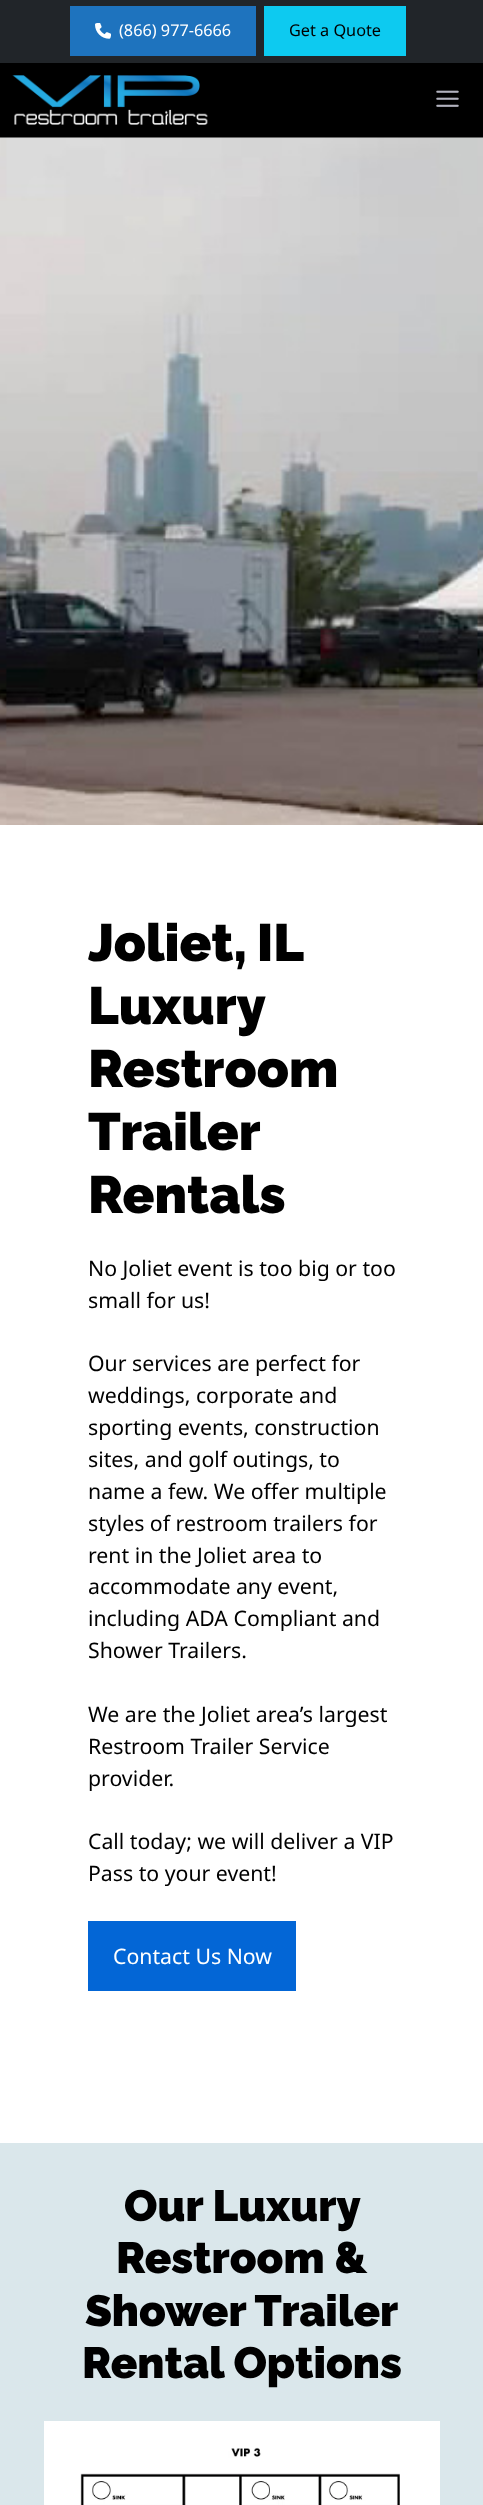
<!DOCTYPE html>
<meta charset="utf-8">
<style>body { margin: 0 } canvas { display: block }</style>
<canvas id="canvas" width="483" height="2505"></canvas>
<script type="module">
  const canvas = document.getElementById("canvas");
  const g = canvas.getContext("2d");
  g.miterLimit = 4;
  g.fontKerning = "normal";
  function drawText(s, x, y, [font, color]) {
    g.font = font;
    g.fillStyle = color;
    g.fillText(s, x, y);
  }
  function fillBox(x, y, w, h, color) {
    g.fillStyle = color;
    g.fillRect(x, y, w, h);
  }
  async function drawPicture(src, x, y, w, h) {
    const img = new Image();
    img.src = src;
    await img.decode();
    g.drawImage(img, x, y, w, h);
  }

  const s1 = ["16.25px Noto Sans", "#FFFFFF"];
  const s2 = ["16.25px Noto Sans", "#000000"];
  const s3 = ["900 52.5px Raleway", "#000000"];
  const s4 = ["21.25px Noto Sans", "#000000"];
  const s5 = ["21.25px Noto Sans", "#FFFFFF"];
  const s6 = ["900 43.75px Raleway", "#000000"];

  fillBox(0, 0, 483, 2505, "#000000");
  fillBox(0, 0, 483, 63, "#212529");
  fillBox(70, 6, 186, 50, "#1E73BE");
  await drawPicture("pic1.png", 95, 23, 16, 16);
  drawText("(866) 977-6666", 119, 36, s1);
  fillBox(264, 6, 142, 50, "#0DCAF0");
  drawText("Get a Quote", 289, 36, s2);
  await drawPicture("pic2.png", 12, 75, 196, 50);
  await drawPicture("pic3.png", 436, 90, 23, 17);
  await drawPicture("pic4.png", 0, 137, 483, 688);
  fillBox(0, 825, 483, 1318, "#FFFFFF");
  g.wordSpacing = "-2px";
  drawText("Joliet, IL", 88, 961, s3);
  g.wordSpacing = "0px";
  drawText("Luxury", 88, 1024, s3);
  drawText("Restroom", 88, 1087, s3);
  drawText("Trailer", 88, 1150, s3);
  drawText("Rentals", 88, 1213, s3);
  drawText("No Joliet event is too big or too", 88, 1276, s4);
  drawText("small for us!", 88, 1308, s4);
  drawText("Our services are perfect for", 88, 1371, s4);
  drawText("weddings, corporate and", 88, 1403, s4);
  drawText("sporting events, construction", 88, 1435, s4);
  drawText("sites, and golf outings, to", 88, 1467, s4);
  drawText("name a few. We offer multiple", 88, 1499, s4);
  drawText("styles of restroom trailers for", 88, 1531, s4);
  drawText("rent in the Joliet area to", 88, 1563, s4);
  drawText("accommodate any event,", 88, 1594, s4);
  drawText("including ADA Compliant and", 88, 1626, s4);
  drawText("Shower Trailers.", 88, 1658, s4);
  drawText("We are the Joliet area’s largest", 88, 1722, s4);
  drawText("Restroom Trailer Service", 88, 1754, s4);
  drawText("provider.", 88, 1786, s4);
  drawText("Call today; we will deliver a VIP", 88, 1849, s4);
  drawText("Pass to your event!", 88, 1881, s4);
  fillBox(88, 1921, 208, 70, "#0366D6");
  drawText("Contact Us Now", 113, 1964, s5);
  fillBox(0, 2143, 483, 362, "#DAE7EB");
  drawText("Our Luxury", 124, 2221, s6);
  drawText("Restroom &", 116, 2273, s6);
  drawText("Shower Trailer", 85, 2326, s6);
  drawText("Rental Options", 82, 2378, s6);
  fillBox(44, 2421, 396, 84, "#FFFFFF");
  await drawPicture("pic5.png", 80, 2447, 320, 58);
</script>
